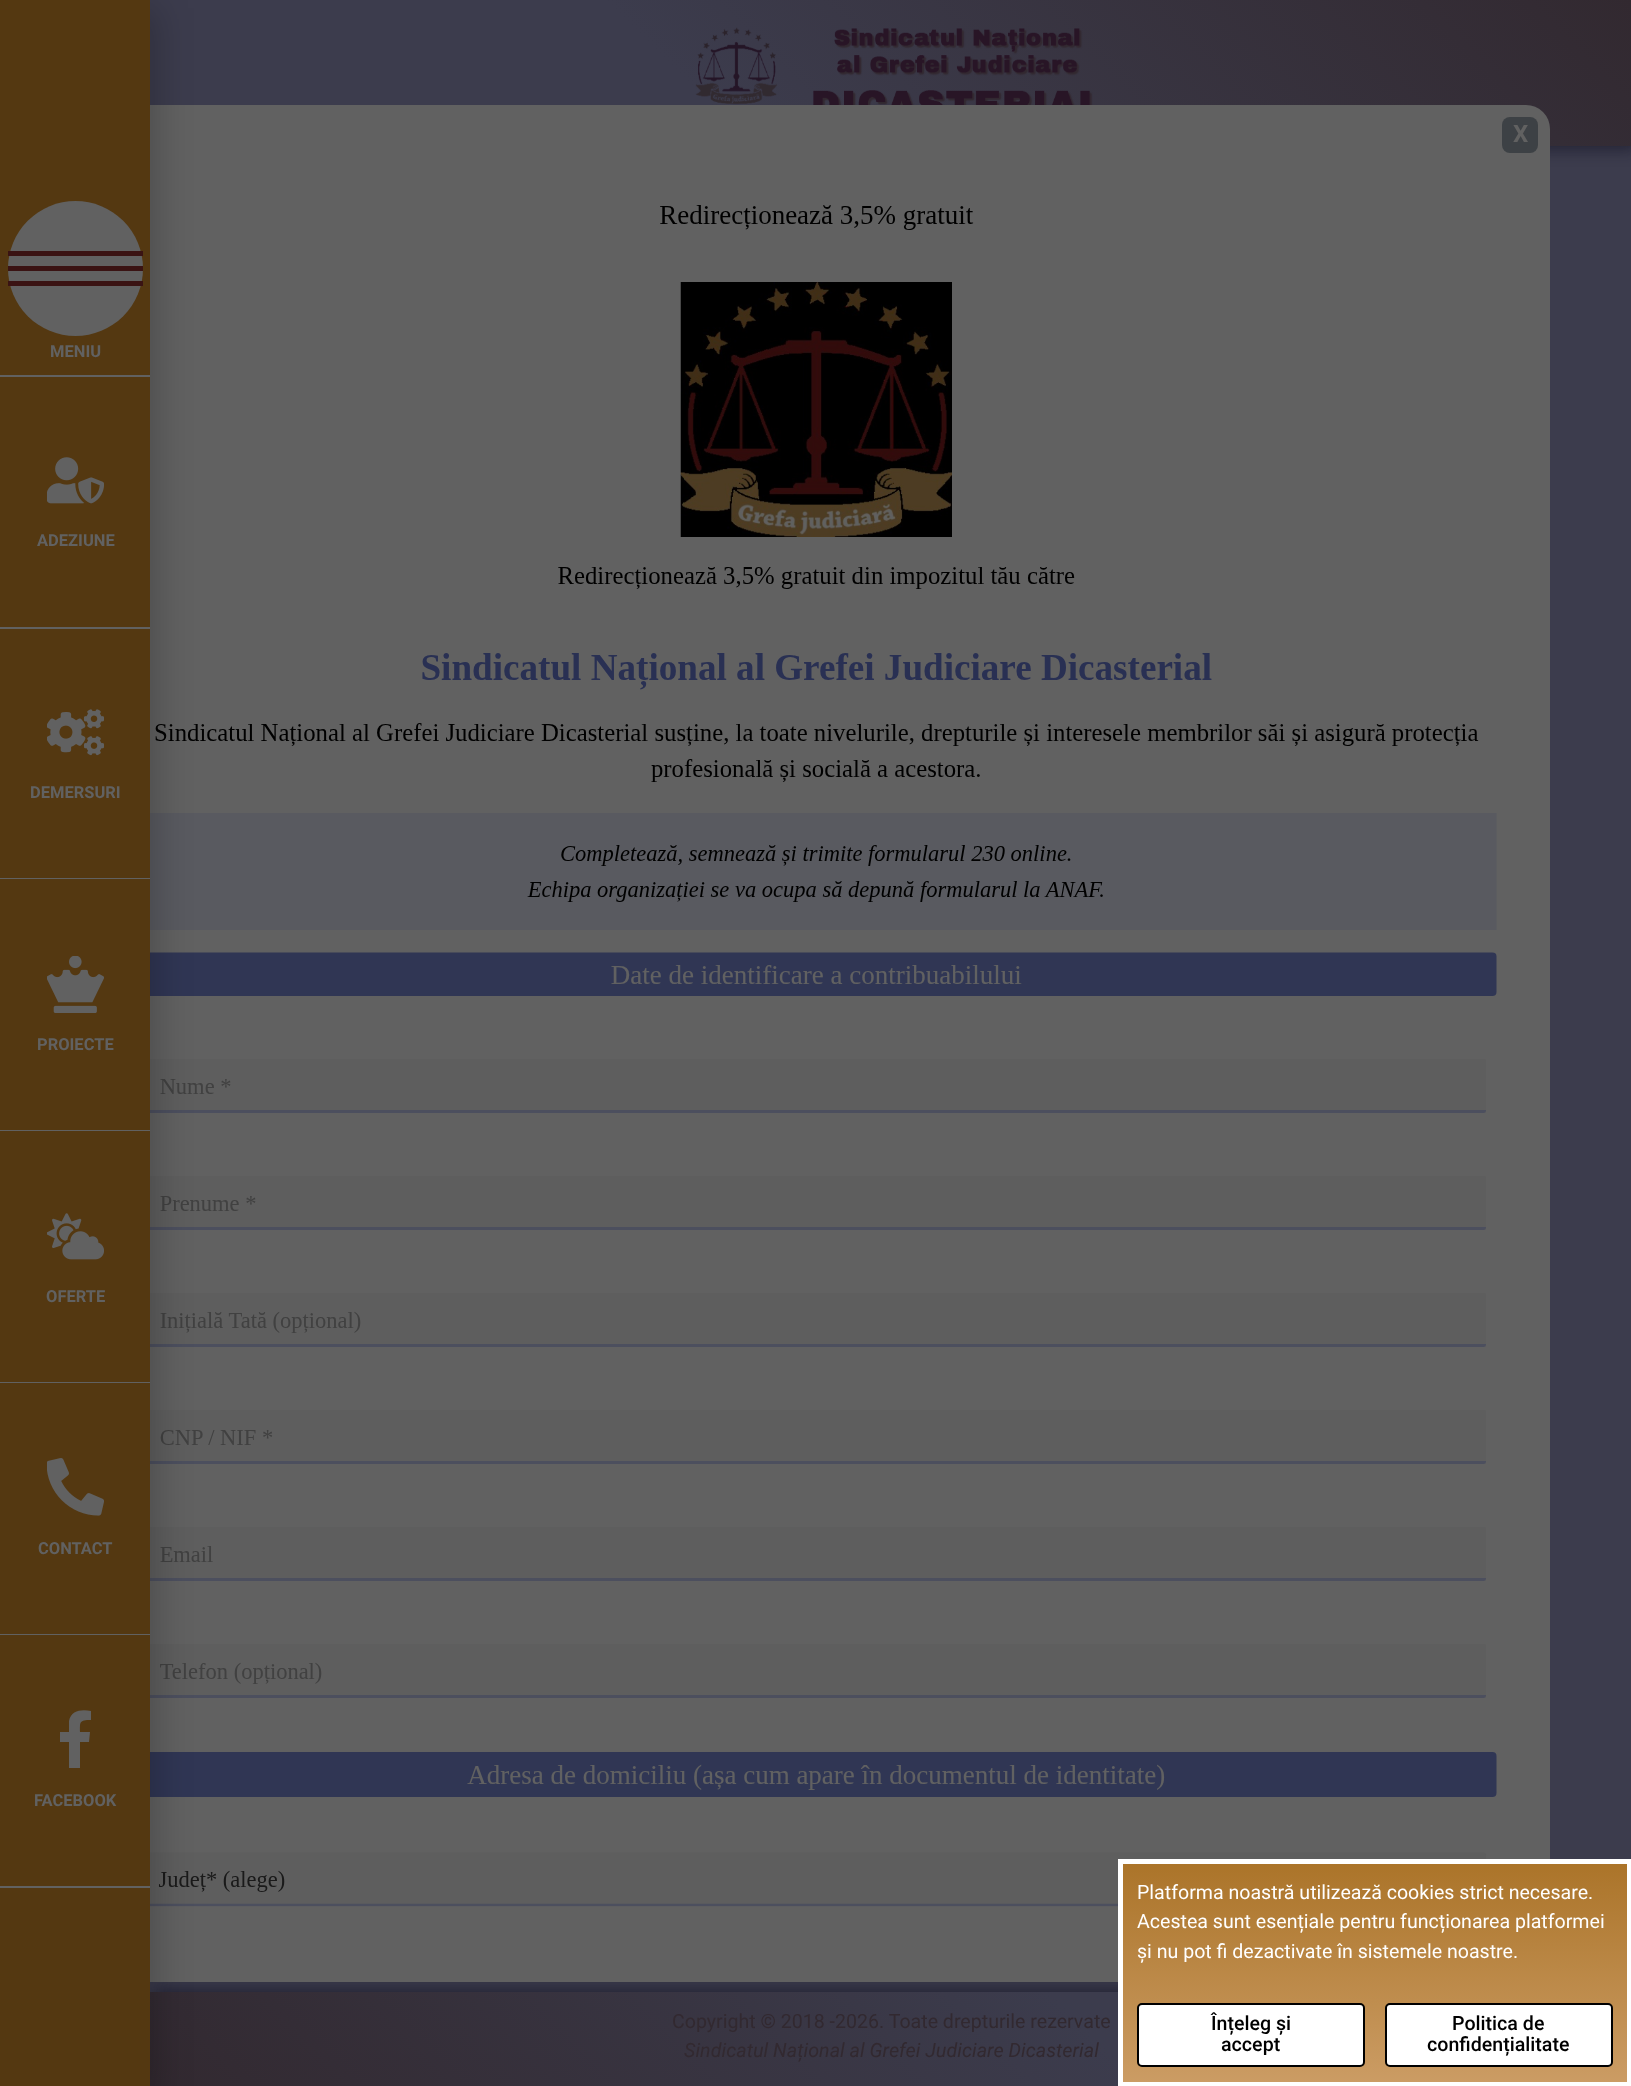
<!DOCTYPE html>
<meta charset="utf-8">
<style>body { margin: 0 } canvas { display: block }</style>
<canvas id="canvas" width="1631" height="2086"></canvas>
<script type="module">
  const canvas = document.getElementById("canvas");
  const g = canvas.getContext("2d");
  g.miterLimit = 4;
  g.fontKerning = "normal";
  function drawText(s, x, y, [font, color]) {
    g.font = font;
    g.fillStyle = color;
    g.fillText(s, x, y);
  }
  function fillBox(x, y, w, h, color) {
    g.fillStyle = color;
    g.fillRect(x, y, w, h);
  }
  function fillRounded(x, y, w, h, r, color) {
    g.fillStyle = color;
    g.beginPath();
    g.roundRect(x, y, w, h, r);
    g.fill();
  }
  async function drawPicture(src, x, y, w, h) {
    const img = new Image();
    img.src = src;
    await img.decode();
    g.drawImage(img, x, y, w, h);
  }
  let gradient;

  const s1 = ["bold 24px Roboto", "#616161"];
  const s2 = ["bold 16.5px Roboto", "#616161"];
  const s3 = ["19.6px Roboto", "#322930"];
  const s4 = ["italic 19.6px Roboto", "#322930"];
  const s5 = ["19.6px Roboto", "#FFFFFF"];
  const s6 = ["500 19.6px Roboto", "#000000"];

  fillBox(0, 0, 1631, 2086, "#3C3C4D");
  g.fillStyle = "rgba(11, 11, 29, 0.5)";
  g.filter = "blur(7.5px)";
  g.beginPath();
  g.rect(155, 5, 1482, 145);
  g.fill();
  g.filter = "none";
  gradient = g.createLinearGradient(484, 480, 1298, -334);
  gradient.addColorStop(0.37, "#3C3C4D");
  gradient.addColorStop(1, "#322930");
  g.fillStyle = gradient;
  g.fillRect(150, 0, 1481, 146);
  await drawPicture("pic1.png", 695, 27, 398, 78);
  g.fillStyle = "rgba(11, 11, 29, 0.5)";
  g.filter = "blur(7.5px)";
  g.beginPath();
  g.rect(155, 1988, 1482, 94);
  g.fill();
  g.filter = "none";
  fillRounded(81, 105, 1469, 1877, 24, "#616161");
  fillRounded(1502, 117, 36, 36, 8, "#3D4145");
  drawText("X", 1513, 142, s1);
  await drawPicture("pic2.png", 150, 205, 1347, 1702);
  gradient = g.createLinearGradient(497, 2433, 1285, 1645);
  gradient.addColorStop(0, "#322930");
  gradient.addColorStop(0.63, "#3C3C4D");
  g.fillStyle = gradient;
  g.fillRect(150, 1992, 968, 94);
  g.fillStyle = "rgba(0, 0, 0, 0.2)";
  g.filter = "blur(17px)";
  g.beginPath();
  g.rect(-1, 8, 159, 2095);
  g.fill();
  g.filter = "none";
  fillBox(0, 0, 150, 2086, "#543811");
  g.fillStyle = "#616161";
  g.beginPath();
  g.arc(75.5, 268.5, 67.5, 0, Math.PI * 2);
  g.fill();
  fillBox(8, 251, 135, 5, "#3A1313");
  fillBox(8, 266, 135, 5, "#3A1313");
  fillBox(8, 281, 135, 5, "#3A1313");
  drawText("MENIU", 50, 357, s2);
  fillBox(0, 375, 150, 2, "#616161");
  fillBox(0, 627, 150, 2, "#616161");
  await drawPicture("pic3.png", 47, 457, 57, 47);
  drawText("ADEZIUNE", 37, 546, s2);
  fillBox(0, 878, 150, 1, "#616161");
  await drawPicture("pic4.png", 47, 709, 57, 47);
  drawText("DEMERSURI", 30, 798, s2);
  fillBox(0, 1130, 150, 1, "#616161");
  await drawPicture("pic5.png", 47, 956, 57, 57);
  drawText("PROIECTE", 37, 1050, s2);
  fillBox(0, 1382, 150, 1, "#616161");
  await drawPicture("pic6.png", 47, 1213, 57, 47);
  drawText("OFERTE", 46, 1302, s2);
  fillBox(0, 1634, 150, 1, "#616161");
  await drawPicture("pic7.png", 47, 1458, 57, 58);
  drawText("CONTACT", 38, 1554, s2);
  fillBox(0, 1886, 150, 2, "#616161");
  g.beginPath();
  g.moveTo(89, 1742);
  g.lineTo(90, 1732);
  g.lineTo(80, 1732);
  g.bezierCurveTo(80, 1722, 79, 1720, 91, 1720);
  g.lineTo(91, 1711);
  g.bezierCurveTo(82, 1709, 71, 1710, 69, 1721);
  g.lineTo(69, 1732);
  g.lineTo(60, 1732);
  g.lineTo(60, 1742);
  g.lineTo(69, 1742);
  g.lineTo(69, 1768);
  g.lineTo(80, 1768);
  g.lineTo(80, 1742);
  g.closePath();
  g.fill();
  drawText("FACEBOOK", 34, 1806, s2);
  drawText("Copyright © 2018 -2026. Toate drepturile rezervate", 672, 2028, s3);
  drawText("Sindicatul Național al Grefei Judiciare Dicasterial", 684, 2057, s4);
  gradient = g.createLinearGradient(1375, 1863, 1375, 2082);
  gradient.addColorStop(0, "#AB7429");
  gradient.addColorStop(1, "#CB9C64");
  g.fillStyle = gradient;
  g.fillRect(1123, 1864, 504, 218);
  g.strokeStyle = "#FFFFFF";
  g.lineWidth = 5;
  g.strokeRect(1120.5, 1861.5, 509, 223);
  drawText("Platforma noastră utilizează cookies strict necesare.", 1137, 1899, s5);
  drawText("Acestea sunt esențiale pentru funcționarea platformei", 1137, 1928, s5);
  drawText("și nu pot fi dezactivate în sistemele noastre.", 1137, 1958, s5);
  g.beginPath();
  g.roundRect(1138, 2004, 226, 62, 4);
  g.fill();
  g.strokeStyle = "#000000";
  g.lineWidth = 2;
  g.stroke();
  drawText("Înțeleg și", 1211, 2030, s6);
  drawText("accept", 1221, 2051, s6);
  g.fillStyle = "#FFFFFF";
  g.beginPath();
  g.roundRect(1386, 2004, 226, 62, 4);
  g.fill();
  g.stroke();
  drawText("Politica de", 1452, 2030, s6);
  drawText("confidențialitate", 1427, 2051, s6);
</script>
